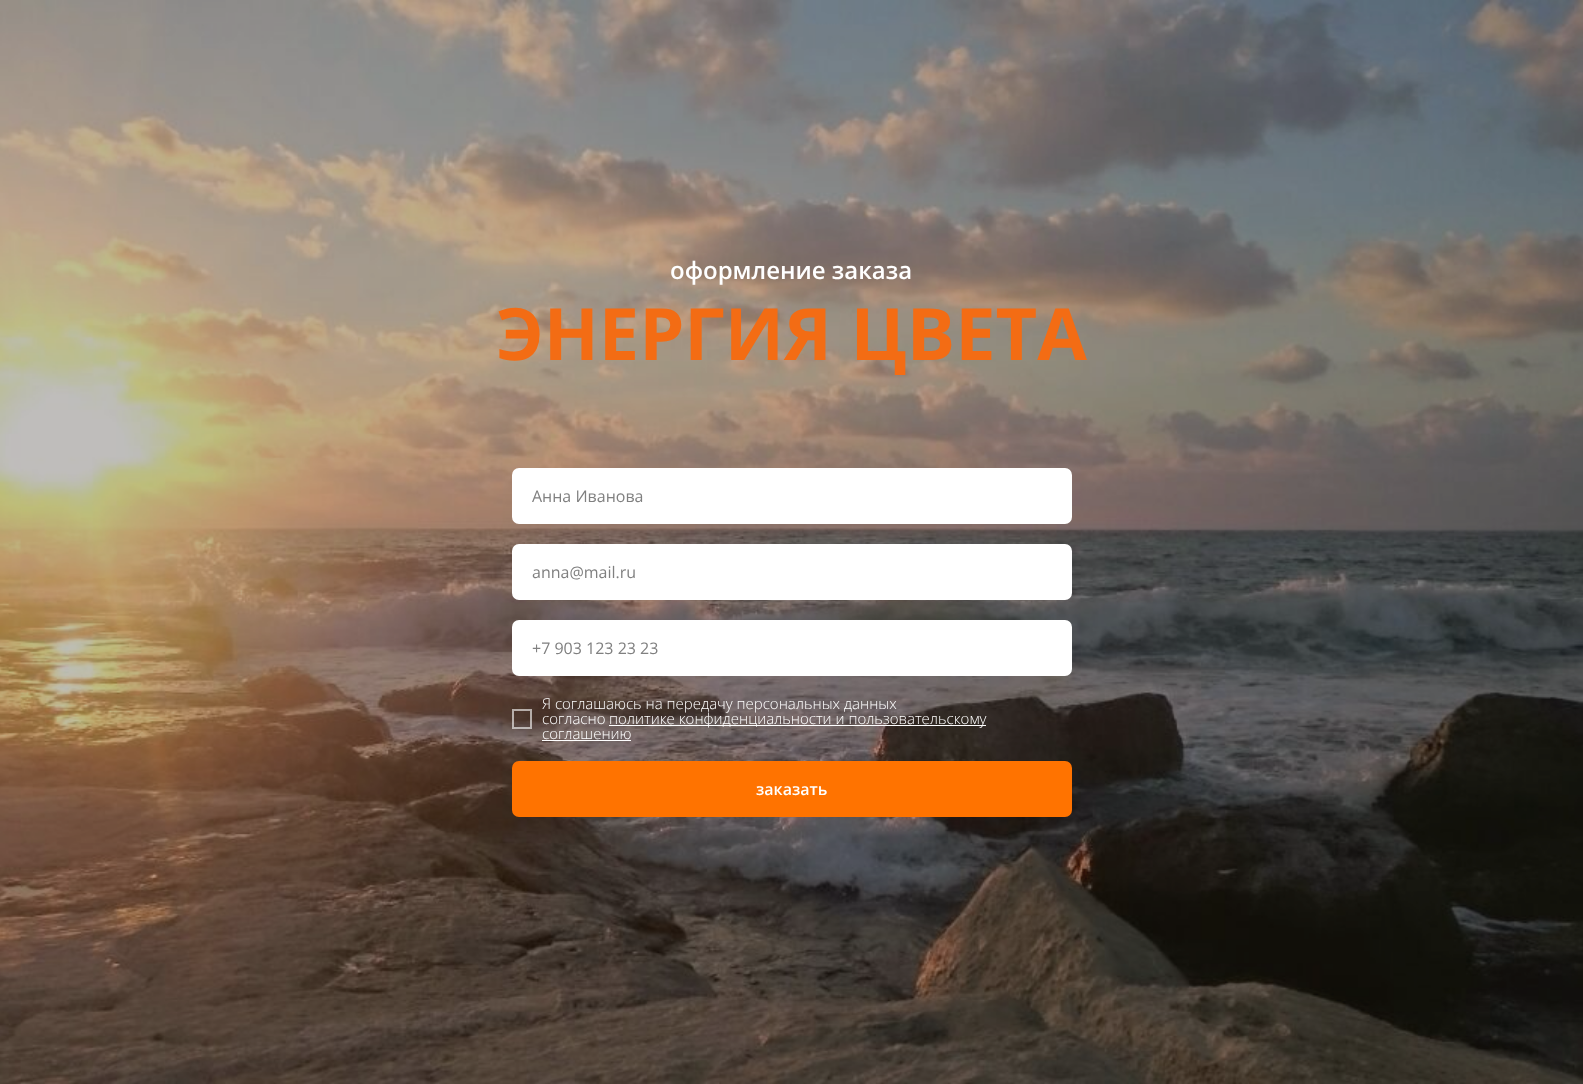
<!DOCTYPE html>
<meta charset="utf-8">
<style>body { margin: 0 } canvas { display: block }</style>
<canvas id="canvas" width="1583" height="1084"></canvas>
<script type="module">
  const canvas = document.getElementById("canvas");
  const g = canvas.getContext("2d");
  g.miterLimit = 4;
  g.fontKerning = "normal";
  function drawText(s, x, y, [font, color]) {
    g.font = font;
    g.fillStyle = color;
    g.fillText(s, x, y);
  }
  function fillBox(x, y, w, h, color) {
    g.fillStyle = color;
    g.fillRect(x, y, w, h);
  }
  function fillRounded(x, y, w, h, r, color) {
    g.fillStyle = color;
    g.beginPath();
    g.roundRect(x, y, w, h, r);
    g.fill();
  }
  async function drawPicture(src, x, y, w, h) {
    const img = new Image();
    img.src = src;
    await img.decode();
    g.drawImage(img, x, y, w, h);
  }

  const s1 = ["600 24px Open Sans", "#FFFFFF"];
  const s2 = ["bold 72px Open Sans", "#F36C14"];
  const s3 = ["16px Open Sans", "#808080"];
  const s4 = ["300 15px Open Sans", "#FFFFFF"];
  const s5 = ["600 16px Open Sans", "#FFFFFF"];

  fillBox(0, 0, 1583, 1084, "#FFFFFF");
  await drawPicture("pic1.png", 0, 0, 1583, 1084);
  drawText("оформление заказа", 670, 279, s1);
  drawText("ЭНЕРГИЯ ЦВЕТА", 496, 360, s2);
  fillRounded(512, 468, 560, 56, 7, "#FFFFFF");
  drawText("Анна Иванова", 532, 502, s3);
  fillRounded(512, 544, 560, 56, 7, "#FFFFFF");
  drawText("anna@mail.ru", 532, 578, s3);
  fillRounded(512, 620, 560, 56, 7, "#FFFFFF");
  drawText("+7 903 123 23 23", 532, 654, s3);
  g.strokeStyle = "rgba(255, 255, 255, 0.6)";
  g.lineWidth = 2;
  g.strokeRect(513, 710, 18, 18);
  drawText("Я соглашаюсь на передачу персональных данных", 542, 709, s4);
  drawText("согласно", 542, 724, s4);
  fillBox(609, 725, 377, 1, "#FFFFFF");
  drawText("политике конфиденциальности и пользовательскому", 609, 724, s4);
  drawText("соглашению", 542, 739, s4);
  fillBox(542, 740, 89, 1, "#FFFFFF");
  fillRounded(512, 761, 560, 56, 7, "#FF7300");
  drawText("заказать", 756, 795, s5);
</script>
